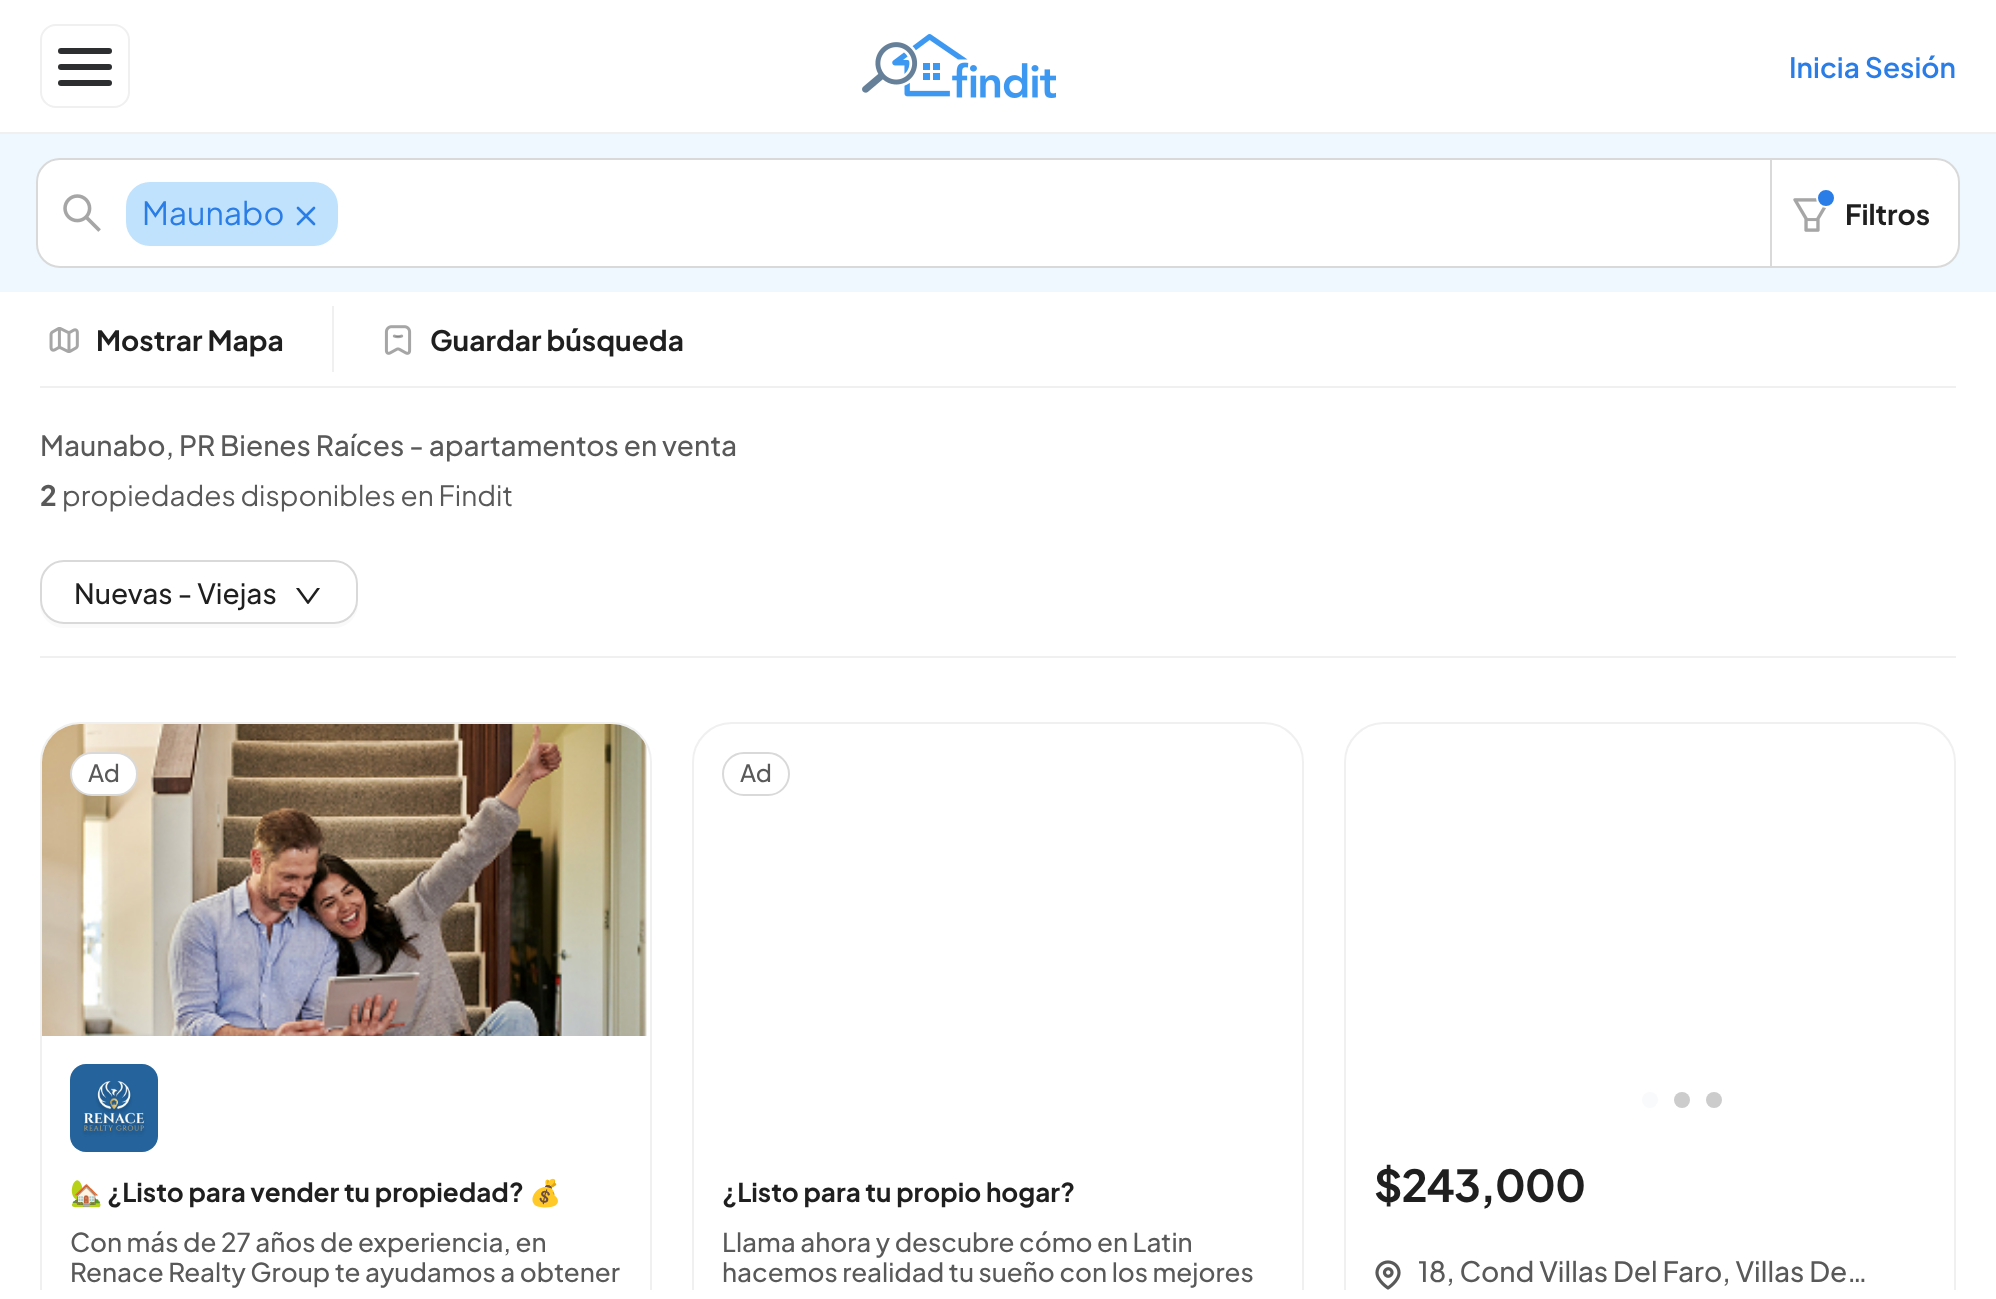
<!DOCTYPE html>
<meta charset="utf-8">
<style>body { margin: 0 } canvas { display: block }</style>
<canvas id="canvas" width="1996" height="1299"></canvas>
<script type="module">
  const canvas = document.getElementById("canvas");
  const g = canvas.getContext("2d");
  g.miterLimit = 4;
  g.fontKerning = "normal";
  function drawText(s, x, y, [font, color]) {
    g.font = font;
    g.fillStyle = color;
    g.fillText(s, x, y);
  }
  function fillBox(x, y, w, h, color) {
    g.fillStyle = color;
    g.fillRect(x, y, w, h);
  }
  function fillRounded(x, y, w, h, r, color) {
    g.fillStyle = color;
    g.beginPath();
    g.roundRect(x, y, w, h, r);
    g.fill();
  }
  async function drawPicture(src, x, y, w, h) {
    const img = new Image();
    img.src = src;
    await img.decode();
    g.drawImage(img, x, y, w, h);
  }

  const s1 = ["600 28px Plus Jakarta Sans", "#2A7DE6"];
  const s2 = ["32px Plus Jakarta Sans", "#2A7DE6"];
  const s3 = ["bold 28px Plus Jakarta Sans", "#1F1F1F"];
  const s4 = ["500 28px Plus Jakarta Sans", "#595959"];
  const s5 = ["bold 28px Plus Jakarta Sans", "#595959"];
  const s6 = ["28px Plus Jakarta Sans", "#595959"];
  const s7 = ["500 28px Plus Jakarta Sans", "#1F1F1F"];
  const s8 = ["500 24px Plus Jakarta Sans", "#595959"];
  const s9 = ["bold 26px Noto Color Emoji", "#1F1F1F"];
  const s10 = ["bold 26px Plus Jakarta Sans", "#1F1F1F"];
  const s11 = ["500 26px Plus Jakarta Sans", "#595959"];
  const s12 = ["bold 44px Plus Jakarta Sans", "#1F1F1F"];

  fillBox(0, 0, 1996, 1299, "#FFFFFF");
  fillBox(0, 132, 1996, 2, "#F0F0F0");
  g.beginPath();
  g.roundRect(41, 25, 88, 82, 15);
  g.strokeStyle = "#F0F0F0";
  g.lineWidth = 2;
  g.stroke();
  fillRounded(58, 64, 54, 6, 3, "#2D2E30");
  fillRounded(58, 48, 54, 6, 3, "#2D2E30");
  fillRounded(58, 80, 54, 6, 3, "#2D2E30");
  await drawPicture("pic1.png", 862, 34, 194, 64);
  drawText("Inicia Sesión", 1789, 78, s1);
  fillBox(0, 134, 1996, 158, "#EFF8FF");
  g.fillStyle = "#FFFFFF";
  g.beginPath();
  g.roundRect(37, 159, 1922, 108, 23);
  g.fill();
  g.strokeStyle = "#D9D9D9";
  g.stroke();
  await drawPicture("pic2.png", 63, 194, 38, 38);
  fillRounded(126, 182, 212, 64, 24, "#C1E2FC");
  drawText("Maunabo", 142, 225, s2);
  g.beginPath();
  g.moveTo(314, 208);
  g.lineTo(298, 224);
  g.moveTo(298, 208);
  g.lineTo(314, 224);
  g.strokeStyle = "#2A7DE6";
  g.lineWidth = 2.7;
  g.lineCap = "round";
  g.lineJoin = "round";
  g.stroke();
  fillBox(1770, 160, 2, 106, "#D9D9D9");
  await drawPicture("pic3.png", 1793, 198, 34, 34);
  g.fillStyle = "#2A7DE6";
  g.beginPath();
  g.arc(1826, 198, 9, 0, Math.PI * 2);
  g.fill();
  g.strokeStyle = "#FFFFFF";
  g.lineWidth = 2;
  g.stroke();
  drawText("Filtros", 1845, 225, s3);
  fillBox(40, 386, 1916, 2, "#F0F0F0");
  await drawPicture("pic4.png", 49, 327, 30, 26);
  drawText("Mostrar Mapa", 96, 351, s3);
  fillBox(332, 306, 2, 66, "#F0F0F0");
  await drawPicture("pic5.png", 384, 325, 28, 30);
  drawText("Guardar búsqueda", 430, 351, s3);
  fillBox(40, 656, 1916, 2, "#F0F0F0");
  drawText("Maunabo, PR Bienes Raíces - apartamentos en venta", 40, 456, s4);
  drawText("2", 40, 506, s5);
  drawText("propiedades disponibles en Findit", 62, 506, s6);
  g.fillStyle = "#FAFAFA";
  g.beginPath();
  g.moveTo(40, 600);
  g.lineTo(40, 604);
  g.bezierCurveTo(40, 617, 51, 628, 64, 628);
  g.lineTo(334, 628);
  g.bezierCurveTo(347, 628, 358, 617, 358, 604);
  g.lineTo(358, 600);
  g.bezierCurveTo(358, 613, 347, 624, 334, 624);
  g.lineTo(64, 624);
  g.bezierCurveTo(51, 624, 40, 613, 40, 600);
  g.closePath();
  g.fill();
  g.beginPath();
  g.roundRect(41, 561, 316, 62, 23);
  g.strokeStyle = "#D9D9D9";
  g.lineJoin = "miter";
  g.stroke();
  drawText("Nuevas - Viejas", 74, 604, s7);
  await drawPicture("pic6.png", 296, 588, 24, 16);
  g.save();
  g.beginPath();
  g.rect(0, 388, 1996, 902);
  g.clip();
  g.beginPath();
  g.roundRect(41, 723, 610, 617, 39);
  g.strokeStyle = "#F0F0F0";
  g.stroke();
  g.restore();
  await drawPicture("pic7.png", 42, 724, 605, 312);
  g.fillStyle = "#FFFFFF";
  g.beginPath();
  g.roundRect(71, 753, 66, 42, 21);
  g.fill();
  g.stroke();
  drawText("Ad", 88, 782, s8);
  await drawPicture("pic8.png", 70, 1064, 88, 88);
  drawText("🏡", 70, 1202, s9);
  drawText("¿Listo para vender tu propiedad?", 107, 1202, s10);
  drawText("💰", 529, 1202, s9);
  drawText("Con más de 27 años de experiencia, en", 70, 1252, s11);
  drawText("Renace Realty Group te ayudamos a obtener", 70, 1282, s11);
  g.save();
  g.beginPath();
  g.rect(0, 388, 1996, 902);
  g.clip();
  g.beginPath();
  g.roundRect(693, 723, 610, 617, 39);
  g.strokeStyle = "#F0F0F0";
  g.stroke();
  g.restore();
  g.beginPath();
  g.roundRect(723, 753, 66, 42, 21);
  g.stroke();
  drawText("Ad", 740, 782, s8);
  drawText("¿Listo para tu propio hogar?", 722, 1202, s10);
  drawText("Llama ahora y descubre cómo en Latin", 722, 1252, s11);
  drawText("hacemos realidad tu sueño con los mejores", 722, 1282, s11);
  g.save();
  g.beginPath();
  g.rect(0, 388, 1996, 902);
  g.clip();
  g.beginPath();
  g.roundRect(1345, 723, 610, 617, 39);
  g.strokeStyle = "#F0F0F0";
  g.stroke();
  g.restore();
  g.fillStyle = "#F9FAFB";
  g.beginPath();
  g.arc(1650, 1100, 8, 0, Math.PI * 2);
  g.fill();
  g.fillStyle = "#CCCCCC";
  g.beginPath();
  g.arc(1682, 1100, 8, 0, Math.PI * 2);
  g.fill();
  g.beginPath();
  g.arc(1714, 1100, 8, 0, Math.PI * 2);
  g.fill();
  g.letterSpacing = "-1px";
  drawText("$243,000", 1374, 1202, s12);
  await drawPicture("pic9.png", 1375, 1260, 26, 30);
  g.letterSpacing = "0px";
  drawText("18, Cond Villas Del Faro, Villas De…", 1418, 1282, s4);
</script>
